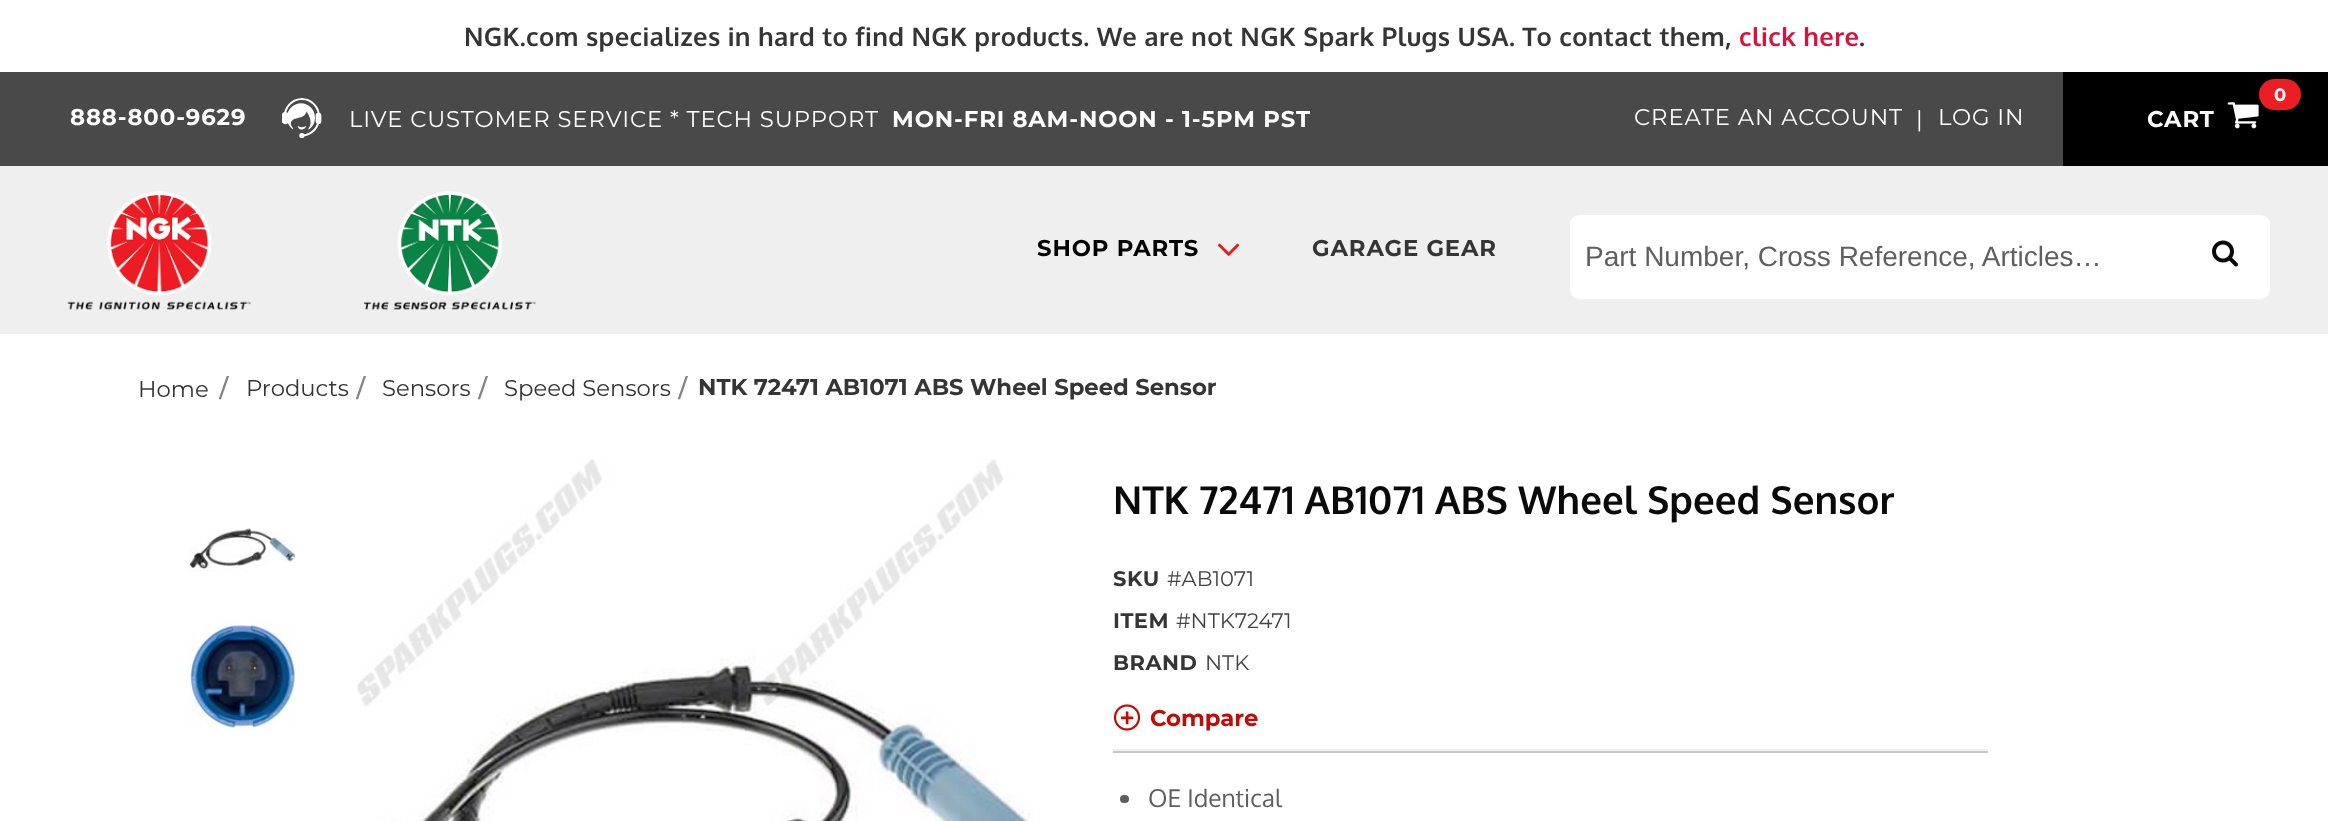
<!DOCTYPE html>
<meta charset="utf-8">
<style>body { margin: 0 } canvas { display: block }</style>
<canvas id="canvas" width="2328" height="821"></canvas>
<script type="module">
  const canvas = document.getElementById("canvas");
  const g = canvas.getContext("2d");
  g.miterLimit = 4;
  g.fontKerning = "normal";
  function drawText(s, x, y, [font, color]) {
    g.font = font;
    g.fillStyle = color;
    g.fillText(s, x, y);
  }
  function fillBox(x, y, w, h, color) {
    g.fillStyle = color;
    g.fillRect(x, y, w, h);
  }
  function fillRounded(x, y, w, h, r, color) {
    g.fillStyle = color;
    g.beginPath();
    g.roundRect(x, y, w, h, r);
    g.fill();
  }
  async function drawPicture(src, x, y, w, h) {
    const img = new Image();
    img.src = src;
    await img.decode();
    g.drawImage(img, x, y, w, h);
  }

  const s1 = ["bold 25.65px Oxygen", "#353535"];
  const s2 = ["bold 25.65px Oxygen", "#D9123D"];
  const s3 = ["bold 22.75px Montserrat", "#FEFEFE"];
  const s4 = ["22.75px Montserrat", "#FEFEFE"];
  const s5 = ["bold 18px Montserrat", "#FEFEFE"];
  const s6 = ["bold 22.75px Montserrat", "#000000"];
  const s7 = ["bold 22.75px Montserrat", "#353535"];
  const s8 = ["28px Liberation Sans", "#5F5F5F"];
  const s9 = ["22.75px Montserrat", "#353535"];
  const s10 = ["bold 35px Liberation Serif", "#858585"];
  const s11 = ["bold 38.5px Oxygen", "#0A0A0A"];
  const s12 = ["bold 21px Montserrat", "#353535"];
  const s13 = ["21px Montserrat", "#444444"];
  const s14 = ["bold 22.75px Montserrat", "#C30A06"];
  const s15 = ["24.5px Oxygen", "#5F5F5F"];

  fillBox(0, 0, 2328, 821, "#FFFFFF");
  g.letterSpacing = "0.35px";
  drawText("NGK.com specializes in hard to find NGK products. We are not NGK Spark Plugs USA. To contact them,", 464, 46, s1);
  drawText("click here", 1739, 46, s2);
  drawText(".", 1859, 46, s1);
  fillBox(0, 72, 2063, 94, "#494949");
  g.letterSpacing = "0.9px";
  drawText("888-800-9629", 70, 125, s3);
  await drawPicture("pic1.png", 282, 98, 40, 40);
  drawText("LIVE CUSTOMER SERVICE * TECH SUPPORT", 349, 127, s4);
  drawText("MON-FRI 8AM-NOON - 1-5PM PST", 892, 127, s3);
  drawText("CREATE AN ACCOUNT", 1634, 125, s4);
  drawText("|", 1916, 127, s4);
  drawText("LOG IN", 1938, 125, s4);
  fillBox(2063, 72, 265, 94, "#000000");
  fillRounded(2259, 79, 42, 31, 15.5, "#EB1E24");
  drawText("0", 2274, 101, s5);
  await drawPicture("pic2.png", 2227, 102, 32, 27);
  drawText("CART", 2147, 127, s3);
  fillBox(0, 166, 2328, 168, "#EFEFEF");
  await drawPicture("pic3.png", 67, 191, 469, 119);
  drawText("SHOP PARTS", 1037, 256, s6);
  await drawPicture("pic4.png", 1218, 243, 22, 13);
  drawText("GARAGE GEAR", 1312, 256, s7);
  g.fillStyle = "#FFFFFF";
  g.beginPath();
  g.roundRect(1571, 216, 698, 82, 8);
  g.fill();
  g.strokeStyle = "#FFFFFF";
  g.lineWidth = 2;
  g.stroke();
  g.letterSpacing = "0px";
  drawText("Part Number, Cross Reference, Articles…", 1585, 266, s8);
  await drawPicture("pic5.png", 2212, 240, 26, 27);
  drawText("Home", 138, 397, s9);
  drawText("/", 219, 399, s10);
  drawText("Products", 246, 396, s9);
  drawText("/", 356, 399, s10);
  drawText("Sensors", 382, 396, s9);
  drawText("/", 478, 399, s10);
  drawText("Speed Sensors", 504, 396, s9);
  drawText("/", 678, 399, s10);
  drawText("NTK 72471 AB1071 ABS Wheel Speed Sensor", 698, 395, s7);
  await drawPicture("pic6.png", 189, 528, 107, 44);
  await drawPicture("pic7.png", 189, 623, 107, 107);
  await drawPicture("pic8.png", 357, 459, 677, 362);
  drawText("NTK 72471 AB1071 ABS Wheel Speed Sensor", 1113, 514, s11);
  g.letterSpacing = "0.5px";
  drawText("SKU", 1113, 586, s12);
  g.letterSpacing = "0px";
  drawText("#AB1071", 1167, 586, s13);
  g.letterSpacing = "0.5px";
  drawText("ITEM", 1113, 628, s12);
  g.letterSpacing = "0px";
  drawText("#NTK72471", 1176, 628, s13);
  g.letterSpacing = "0.5px";
  drawText("BRAND", 1113, 670, s12);
  g.letterSpacing = "0px";
  drawText("NTK", 1205, 670, s13);
  await drawPicture("pic9.png", 1113, 704, 28, 27);
  drawText("Compare", 1150, 726, s14);
  fillBox(1113, 749, 875, 2, "#F1F1F1");
  fillBox(1113, 751, 875, 2, "#C8C8C8");
  fillRounded(1120, 795, 9, 8, 4, "#5F5F5F");
  drawText("OE Identical", 1148, 807, s15);
</script>
